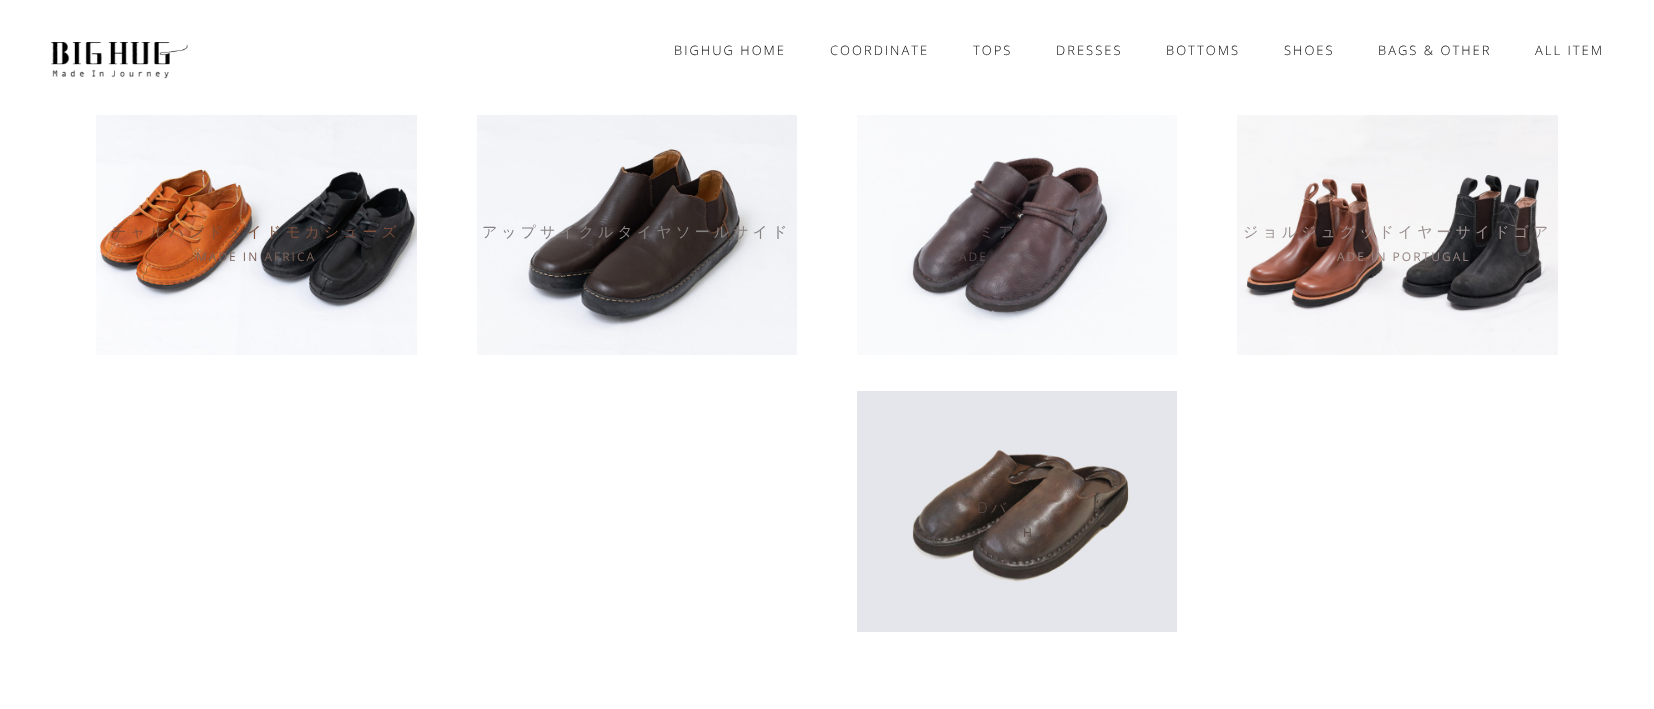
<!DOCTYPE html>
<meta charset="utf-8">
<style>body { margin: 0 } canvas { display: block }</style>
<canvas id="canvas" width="1654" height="709"></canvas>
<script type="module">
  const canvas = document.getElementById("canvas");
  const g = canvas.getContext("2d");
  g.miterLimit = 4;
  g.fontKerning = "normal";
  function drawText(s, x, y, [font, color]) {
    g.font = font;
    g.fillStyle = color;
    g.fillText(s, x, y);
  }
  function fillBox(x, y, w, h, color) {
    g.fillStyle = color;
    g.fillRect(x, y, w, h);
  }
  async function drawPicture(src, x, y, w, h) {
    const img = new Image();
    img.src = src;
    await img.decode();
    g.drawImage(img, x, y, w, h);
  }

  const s1 = ["300 13px Open Sans", "#000000"];
  const s2 = ["500 15px WenQuanYi Zen Hei", "#7C503D"];
  const s3 = ["12px Open Sans", "#7E655B"];
  const s4 = ["500 15px WenQuanYi Zen Hei", "#878383"];
  const s5 = ["500 15px WenQuanYi Zen Hei", "#52454A"];
  const s6 = ["12px Open Sans", "#574B4F"];
  const s7 = ["500 15px WenQuanYi Zen Hei", "#9C9190"];
  const s8 = ["12px Open Sans", "#968582"];
  const s9 = ["300 15px Open Sans", "#5E504A"];
  const s10 = ["500 15px WenQuanYi Zen Hei", "#594941"];
  const s11 = ["12px Open Sans", "#594941"];

  fillBox(0, 0, 1654, 709, "#FFFFFF");
  await drawPicture("pic1.png", 51, 42, 137, 37);
  g.letterSpacing = "2px";
  drawText("BIGHUG HOME", 674, 55, s1);
  drawText("COORDINATE", 830, 55, s1);
  drawText("TOPS", 973, 55, s1);
  drawText("DRESSES", 1056, 55, s1);
  drawText("BOTTOMS", 1166, 55, s1);
  drawText("SHOES", 1284, 55, s1);
  drawText("BAGS & OTHER", 1378, 55, s1);
  drawText("ALL ITEM", 1535, 55, s1);
  await drawPicture("pic2.png", 96, 115, 321, 240);
  g.letterSpacing = "4px";
  drawText("チャルハンドメイドモカシューズ", 111, 237, s2);
  g.letterSpacing = "2px";
  drawText("MADE IN AFRICA", 196, 261, s3);
  await drawPicture("pic3.png", 477, 115, 320, 240);
  g.letterSpacing = "4px";
  drawText("アップサイクルタイヤソールサイド", 482, 237, s4);
  await drawPicture("pic4.png", 857, 115, 320, 240);
  drawText("ミア", 979, 237, s5);
  g.letterSpacing = "2px";
  drawText("ADE", 959, 261, s6);
  await drawPicture("pic5.png", 1237, 115, 321, 240);
  g.letterSpacing = "4px";
  drawText("ジョルジュグッドイヤーサイドゴア", 1243, 237, s7);
  g.letterSpacing = "2px";
  drawText("ADE IN PORTUGAL", 1337, 261, s8);
  await drawPicture("pic6.png", 857, 391, 320, 241);
  g.letterSpacing = "4px";
  drawText("D", 977, 513, s9);
  drawText("バ", 991, 513, s10);
  g.letterSpacing = "2px";
  drawText("H", 1023, 537, s11);
</script>
